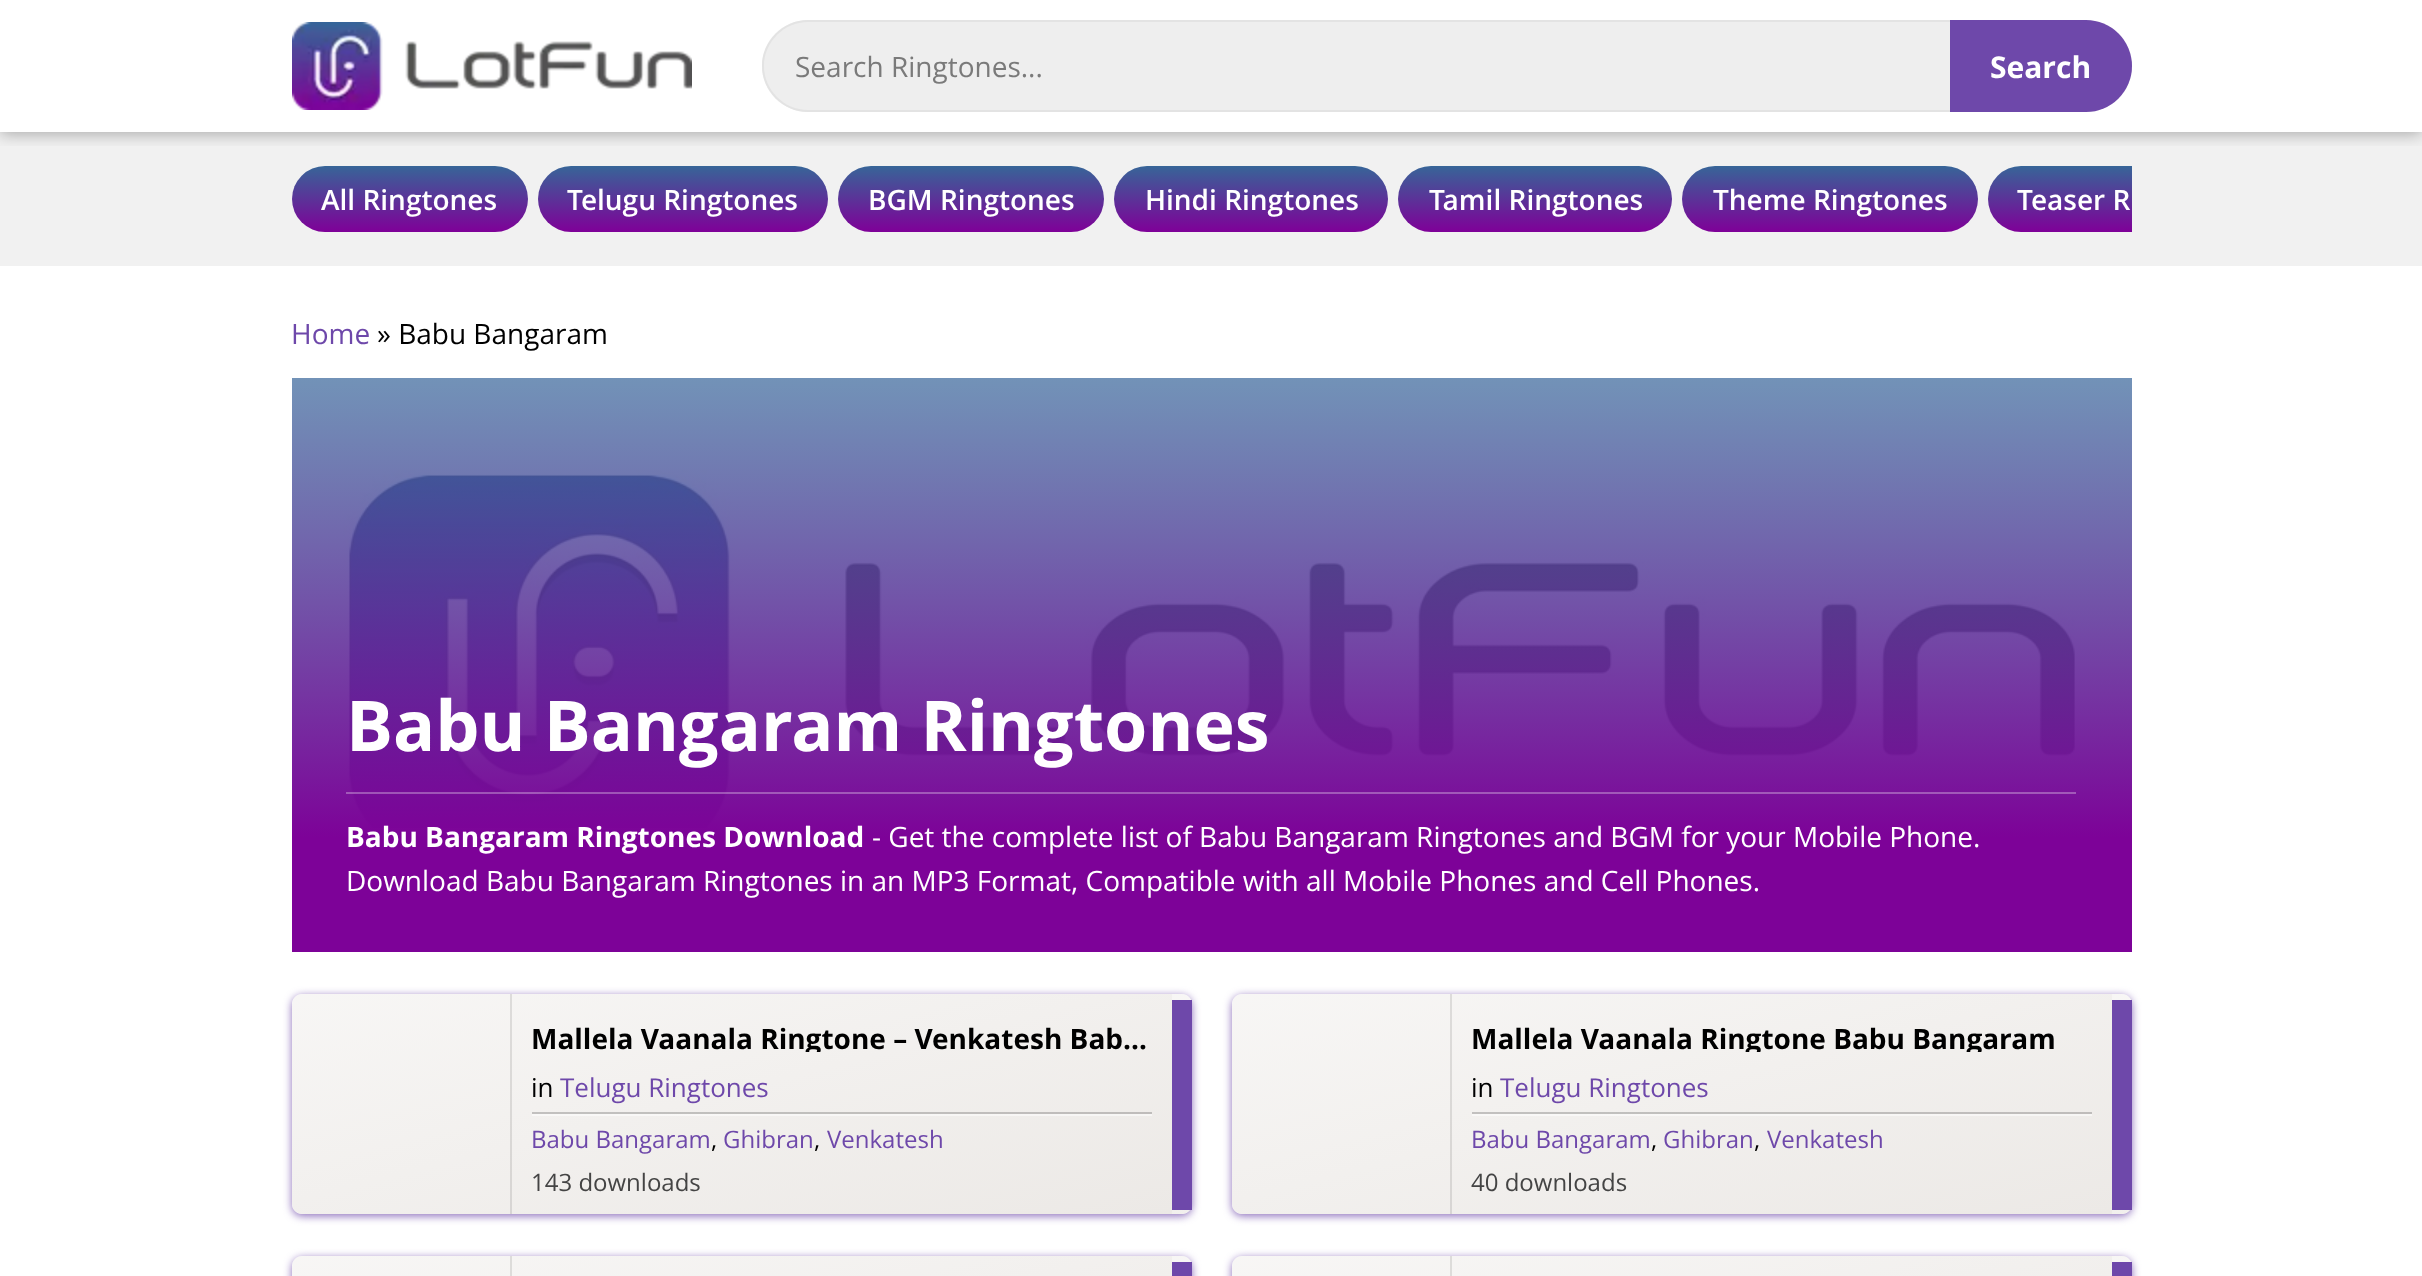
<!DOCTYPE html>
<meta charset="utf-8">
<style>body { margin: 0 } canvas { display: block }</style>
<canvas id="canvas" width="2422" height="1276"></canvas>
<script type="module">
  const canvas = document.getElementById("canvas");
  const g = canvas.getContext("2d");
  g.miterLimit = 4;
  g.fontKerning = "normal";
  function drawText(s, x, y, [font, color]) {
    g.font = font;
    g.fillStyle = color;
    g.fillText(s, x, y);
  }
  function fillBox(x, y, w, h, color) {
    g.fillStyle = color;
    g.fillRect(x, y, w, h);
  }
  function fillRounded(x, y, w, h, r, color) {
    g.fillStyle = color;
    g.beginPath();
    g.roundRect(x, y, w, h, r);
    g.fill();
  }
  async function drawPicture(src, x, y, w, h) {
    const img = new Image();
    img.src = src;
    await img.decode();
    g.drawImage(img, x, y, w, h);
  }
  let gradient;

  const s1 = ["28px Open Sans", "#7A7A7A"];
  const s2 = ["bold 30px 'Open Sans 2'", "#FFFFFF"];
  const s3 = ["600 28px Open Sans", "#FFFFFF"];
  const s4 = ["28px Open Sans", "#6E48AA"];
  const s5 = ["28px Open Sans", "#000000"];
  const s6 = ["bold 70px Open Sans", "#FFFFFF"];
  const s7 = ["bold 28px 'Open Sans 2'", "#FFFFFF"];
  const s8 = ["28px Open Sans", "#FFFFFF"];
  const s9 = ["bold 28px Open Sans", "#000000"];
  const s10 = ["26px Open Sans", "#000000"];
  const s11 = ["26px Open Sans", "#6E48AA"];
  const s12 = ["24px Open Sans", "#6E48AA"];
  const s13 = ["24px Open Sans", "#000000"];
  const s14 = ["24px Open Sans", "#444444"];

  fillBox(0, 0, 2422, 1276, "#FFFFFF");
  fillBox(0, 132, 2422, 134, "#F1F1F1");
  g.save();
  g.beginPath();
  g.rect(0, 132, 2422, 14);
  g.clip();
  g.fillStyle = "rgba(0, 0, 0, 0.3)";
  g.filter = "blur(8px)";
  g.beginPath();
  g.rect(0, 2, 2422, 132);
  g.fill();
  g.filter = "none";
  g.restore();
  await drawPicture("pic1.png", 292, 22, 400, 88);
  fillRounded(762, 20, 1370, 92, 46, "#EEEEEE");
  g.fillStyle = "#E3E3E3";
  g.beginPath();
  g.moveTo(808, 20);
  g.lineTo(1950, 20);
  g.lineTo(1950, 112);
  g.lineTo(808, 112);
  g.bezierCurveTo(783, 112, 762, 91, 762, 66);
  g.bezierCurveTo(762, 41, 783, 20, 808, 20);
  g.closePath();
  g.moveTo(808, 22);
  g.lineTo(1950, 22);
  g.lineTo(1950, 110);
  g.lineTo(808, 110);
  g.bezierCurveTo(784, 110, 764, 90, 764, 66);
  g.bezierCurveTo(764, 42, 784, 22, 808, 22);
  g.closePath();
  g.fill("evenodd");
  drawText("Search Ringtones...", 795, 77, s1);
  g.fillStyle = "#6E48AA";
  g.beginPath();
  g.roundRect(1950, 20, 182, 92, [0, 46, 46, 0]);
  g.fill();
  drawText("Search", 1990, 78, s2);
  gradient = g.createLinearGradient(410, 166, 410, 232);
  gradient.addColorStop(0, "#376598");
  gradient.addColorStop(1, "#7F0098");
  g.fillStyle = gradient;
  g.beginPath();
  g.roundRect(292, 166, 236, 66, 33);
  g.fill();
  drawText("All Ringtones", 321, 210, s3);
  gradient = g.createLinearGradient(683, 166, 683, 232);
  gradient.addColorStop(0, "#376598");
  gradient.addColorStop(1, "#7F0098");
  g.fillStyle = gradient;
  g.beginPath();
  g.roundRect(538, 166, 290, 66, 33);
  g.fill();
  drawText("Telugu Ringtones", 567, 210, s3);
  gradient = g.createLinearGradient(971, 166, 971, 232);
  gradient.addColorStop(0, "#376598");
  gradient.addColorStop(1, "#7F0098");
  g.fillStyle = gradient;
  g.beginPath();
  g.roundRect(838, 166, 266, 66, 33);
  g.fill();
  drawText("BGM Ringtones", 868, 210, s3);
  gradient = g.createLinearGradient(1251, 166, 1251, 232);
  gradient.addColorStop(0, "#376598");
  gradient.addColorStop(1, "#7F0098");
  g.fillStyle = gradient;
  g.beginPath();
  g.roundRect(1114, 166, 274, 66, 33);
  g.fill();
  drawText("Hindi Ringtones", 1145, 210, s3);
  gradient = g.createLinearGradient(1535, 166, 1535, 232);
  gradient.addColorStop(0, "#376598");
  gradient.addColorStop(1, "#7F0098");
  g.fillStyle = gradient;
  g.beginPath();
  g.roundRect(1398, 166, 274, 66, 33);
  g.fill();
  drawText("Tamil Ringtones", 1429, 210, s3);
  gradient = g.createLinearGradient(1830, 166, 1830, 232);
  gradient.addColorStop(0, "#376598");
  gradient.addColorStop(1, "#7F0098");
  g.fillStyle = gradient;
  g.beginPath();
  g.roundRect(1682, 166, 296, 66, 33);
  g.fill();
  drawText("Theme Ringtones", 1713, 210, s3);
  gradient = g.createLinearGradient(2133, 166, 2133, 232);
  gradient.addColorStop(0, "#376598");
  gradient.addColorStop(1, "#7F0098");
  g.fillStyle = gradient;
  g.beginPath();
  g.roundRect(1988, 166, 144, 66, [33, 0, 0, 33]);
  g.fill();
  drawText("Teaser R", 2017, 210, s3);
  drawText("Home", 291, 344, s4);
  drawText("» Babu Bangaram", 377, 344, s5);
  await drawPicture("pic2.png", 343, 470, 1732, 358);
  gradient = g.createLinearGradient(1212, 952, 1212, 378);
  gradient.addColorStop(0.2, "#7D0298");
  gradient.addColorStop(1, "rgba(54, 100, 153, 0.7)");
  g.fillStyle = gradient;
  g.fillRect(292, 378, 1840, 574);
  fillBox(346, 792, 1730, 2, "rgba(255, 255, 255, 0.3)");
  drawText("Babu Bangaram Ringtones", 346, 751, s6);
  drawText("Babu Bangaram Ringtones Download", 346, 847, s7);
  drawText("- Get the complete list of Babu Bangaram Ringtones and BGM for your Mobile Phone.", 872, 847, s8);
  drawText("Download Babu Bangaram Ringtones in an MP3 Format, Compatible with all Mobile Phones and Cell Phones.", 346, 891, s8);
  g.save();
  g.beginPath();
  g.moveTo(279, 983);
  g.lineTo(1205, 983);
  g.lineTo(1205, 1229);
  g.lineTo(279, 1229);
  g.closePath();
  g.moveTo(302, 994);
  g.lineTo(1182, 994);
  g.bezierCurveTo(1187.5, 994, 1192, 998.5, 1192, 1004);
  g.lineTo(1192, 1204);
  g.bezierCurveTo(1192, 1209.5, 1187.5, 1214, 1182, 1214);
  g.lineTo(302, 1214);
  g.bezierCurveTo(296.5, 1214, 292, 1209.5, 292, 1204);
  g.lineTo(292, 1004);
  g.bezierCurveTo(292, 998.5, 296.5, 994, 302, 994);
  g.closePath();
  g.clip("evenodd");
  g.fillStyle = "rgba(110, 72, 170, 0.8)";
  g.filter = "blur(4px)";
  g.beginPath();
  g.roundRect(292, 996, 900, 220, 10);
  g.fill();
  g.filter = "none";
  g.restore();
  gradient = g.createLinearGradient(680, 897, 784, 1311);
  gradient.addColorStop(0, "rgba(236, 233, 230, 0.4)");
  gradient.addColorStop(1, "#ECE9E6");
  g.fillStyle = gradient;
  g.beginPath();
  g.roundRect(292, 994, 880, 220, [10, 0, 0, 10]);
  g.fill();
  gradient = g.createLinearGradient(1560, 897, 1664, 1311);
  gradient.addColorStop(0, "rgba(236, 233, 230, 0.4)");
  gradient.addColorStop(1, "#ECE9E6");
  g.fillStyle = gradient;
  g.beginPath();
  g.roundRect(1172, 994, 20, 220, [0, 10, 10, 0]);
  g.fill();
  fillBox(1172, 1000, 20, 210, "#6E48AA");
  fillBox(510, 994, 2, 220, "rgba(0, 0, 0, 0.1)");
  g.save();
  g.beginPath();
  g.rect(532, 1010, 620, 42);
  g.clip();
  drawText("Mallela Vaanala Ringtone – Venkatesh Bab…", 531, 1049, s9);
  g.restore();
  drawText("in", 531, 1097, s10);
  drawText("Telugu Ringtones", 560, 1097, s11);
  fillBox(532, 1114, 620, 2, "rgba(255, 255, 255, 0.5)");
  fillBox(532, 1112, 620, 2, "rgba(0, 0, 0, 0.2)");
  drawText("Babu Bangaram", 531, 1148, s12);
  drawText(",", 711, 1148, s13);
  drawText("Ghibran", 723, 1148, s12);
  drawText(",", 814, 1148, s13);
  drawText("Venkatesh", 827, 1148, s12);
  drawText("143 downloads", 531, 1191, s14);
  g.save();
  g.beginPath();
  g.moveTo(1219, 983);
  g.lineTo(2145, 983);
  g.lineTo(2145, 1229);
  g.lineTo(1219, 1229);
  g.closePath();
  g.moveTo(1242, 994);
  g.lineTo(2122, 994);
  g.bezierCurveTo(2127.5, 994, 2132, 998.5, 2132, 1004);
  g.lineTo(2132, 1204);
  g.bezierCurveTo(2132, 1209.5, 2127.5, 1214, 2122, 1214);
  g.lineTo(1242, 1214);
  g.bezierCurveTo(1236.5, 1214, 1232, 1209.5, 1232, 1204);
  g.lineTo(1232, 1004);
  g.bezierCurveTo(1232, 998.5, 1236.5, 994, 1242, 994);
  g.closePath();
  g.clip("evenodd");
  g.fillStyle = "rgba(110, 72, 170, 0.8)";
  g.filter = "blur(4px)";
  g.beginPath();
  g.roundRect(1232, 996, 900, 220, 10);
  g.fill();
  g.filter = "none";
  g.restore();
  gradient = g.createLinearGradient(1620, 897, 1724, 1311);
  gradient.addColorStop(0, "rgba(236, 233, 230, 0.4)");
  gradient.addColorStop(1, "#ECE9E6");
  g.fillStyle = gradient;
  g.beginPath();
  g.roundRect(1232, 994, 880, 220, [10, 0, 0, 10]);
  g.fill();
  gradient = g.createLinearGradient(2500, 897, 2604, 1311);
  gradient.addColorStop(0, "rgba(236, 233, 230, 0.4)");
  gradient.addColorStop(1, "#ECE9E6");
  g.fillStyle = gradient;
  g.beginPath();
  g.roundRect(2112, 994, 20, 220, [0, 10, 10, 0]);
  g.fill();
  fillBox(2112, 1000, 20, 210, "#6E48AA");
  fillBox(1450, 994, 2, 220, "rgba(0, 0, 0, 0.1)");
  g.save();
  g.beginPath();
  g.rect(1472, 1010, 620, 42);
  g.clip();
  drawText("Mallela Vaanala Ringtone Babu Bangaram", 1471, 1049, s9);
  g.restore();
  drawText("in", 1471, 1097, s10);
  drawText("Telugu Ringtones", 1500, 1097, s11);
  fillBox(1472, 1114, 620, 2, "rgba(255, 255, 255, 0.5)");
  fillBox(1472, 1112, 620, 2, "rgba(0, 0, 0, 0.2)");
  drawText("Babu Bangaram", 1471, 1148, s12);
  drawText(",", 1651, 1148, s13);
  drawText("Ghibran", 1663, 1148, s12);
  drawText(",", 1754, 1148, s13);
  drawText("Venkatesh", 1767, 1148, s12);
  drawText("40 downloads", 1471, 1191, s14);
  g.save();
  g.beginPath();
  g.moveTo(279, 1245);
  g.lineTo(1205, 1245);
  g.lineTo(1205, 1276);
  g.lineTo(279, 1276);
  g.closePath();
  g.moveTo(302, 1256);
  g.lineTo(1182, 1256);
  g.bezierCurveTo(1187.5, 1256, 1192, 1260.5, 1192, 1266);
  g.lineTo(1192, 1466);
  g.bezierCurveTo(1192, 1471.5, 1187.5, 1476, 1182, 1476);
  g.lineTo(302, 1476);
  g.bezierCurveTo(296.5, 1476, 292, 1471.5, 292, 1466);
  g.lineTo(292, 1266);
  g.bezierCurveTo(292, 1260.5, 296.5, 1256, 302, 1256);
  g.closePath();
  g.clip("evenodd");
  g.fillStyle = "rgba(110, 72, 170, 0.8)";
  g.filter = "blur(4px)";
  g.beginPath();
  g.roundRect(292, 1258, 900, 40, 10);
  g.fill();
  g.filter = "none";
  g.restore();
  gradient = g.createLinearGradient(680, 1159, 784, 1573);
  gradient.addColorStop(0, "rgba(236, 233, 230, 0.4)");
  gradient.addColorStop(1, "#ECE9E6");
  g.fillStyle = gradient;
  g.beginPath();
  g.moveTo(302, 1256);
  g.lineTo(1172, 1256);
  g.lineTo(1172, 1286);
  g.lineTo(302, 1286);
  g.bezierCurveTo(296.5, 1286, 292, 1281.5, 292, 1276);
  g.lineTo(292, 1266);
  g.bezierCurveTo(292, 1260.5, 296.5, 1256, 302, 1256);
  g.closePath();
  g.fill();
  gradient = g.createLinearGradient(1560, 1159, 1664, 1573);
  gradient.addColorStop(0, "rgba(236, 233, 230, 0.4)");
  gradient.addColorStop(1, "#ECE9E6");
  g.fillStyle = gradient;
  g.beginPath();
  g.moveTo(1172, 1256);
  g.lineTo(1182, 1256);
  g.bezierCurveTo(1187.5, 1256, 1192, 1260.5, 1192, 1266);
  g.lineTo(1192, 1276);
  g.bezierCurveTo(1192, 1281.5, 1187.5, 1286, 1182, 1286);
  g.lineTo(1172, 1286);
  g.closePath();
  g.fill();
  fillBox(1172, 1262, 20, 14, "#6E48AA");
  fillBox(510, 1256, 2, 20, "#DDDCDA");
  g.save();
  g.beginPath();
  g.moveTo(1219, 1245);
  g.lineTo(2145, 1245);
  g.lineTo(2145, 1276);
  g.lineTo(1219, 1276);
  g.closePath();
  g.moveTo(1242, 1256);
  g.lineTo(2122, 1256);
  g.bezierCurveTo(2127.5, 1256, 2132, 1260.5, 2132, 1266);
  g.lineTo(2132, 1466);
  g.bezierCurveTo(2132, 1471.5, 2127.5, 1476, 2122, 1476);
  g.lineTo(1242, 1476);
  g.bezierCurveTo(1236.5, 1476, 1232, 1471.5, 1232, 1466);
  g.lineTo(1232, 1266);
  g.bezierCurveTo(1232, 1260.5, 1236.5, 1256, 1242, 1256);
  g.closePath();
  g.clip("evenodd");
  g.fillStyle = "rgba(110, 72, 170, 0.8)";
  g.filter = "blur(4px)";
  g.beginPath();
  g.roundRect(1232, 1258, 900, 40, 10);
  g.fill();
  g.filter = "none";
  g.restore();
  gradient = g.createLinearGradient(1620, 1159, 1724, 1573);
  gradient.addColorStop(0, "rgba(236, 233, 230, 0.4)");
  gradient.addColorStop(1, "#ECE9E6");
  g.fillStyle = gradient;
  g.beginPath();
  g.moveTo(1242, 1256);
  g.lineTo(2112, 1256);
  g.lineTo(2112, 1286);
  g.lineTo(1242, 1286);
  g.bezierCurveTo(1236.5, 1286, 1232, 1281.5, 1232, 1276);
  g.lineTo(1232, 1266);
  g.bezierCurveTo(1232, 1260.5, 1236.5, 1256, 1242, 1256);
  g.closePath();
  g.fill();
  gradient = g.createLinearGradient(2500, 1159, 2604, 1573);
  gradient.addColorStop(0, "rgba(236, 233, 230, 0.4)");
  gradient.addColorStop(1, "#ECE9E6");
  g.fillStyle = gradient;
  g.beginPath();
  g.moveTo(2112, 1256);
  g.lineTo(2122, 1256);
  g.bezierCurveTo(2127.5, 1256, 2132, 1260.5, 2132, 1266);
  g.lineTo(2132, 1276);
  g.bezierCurveTo(2132, 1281.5, 2127.5, 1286, 2122, 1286);
  g.lineTo(2112, 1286);
  g.closePath();
  g.fill();
  fillBox(2112, 1262, 20, 14, "#6E48AA");
  fillBox(1450, 1256, 2, 20, "#DDDCDA");
</script>
